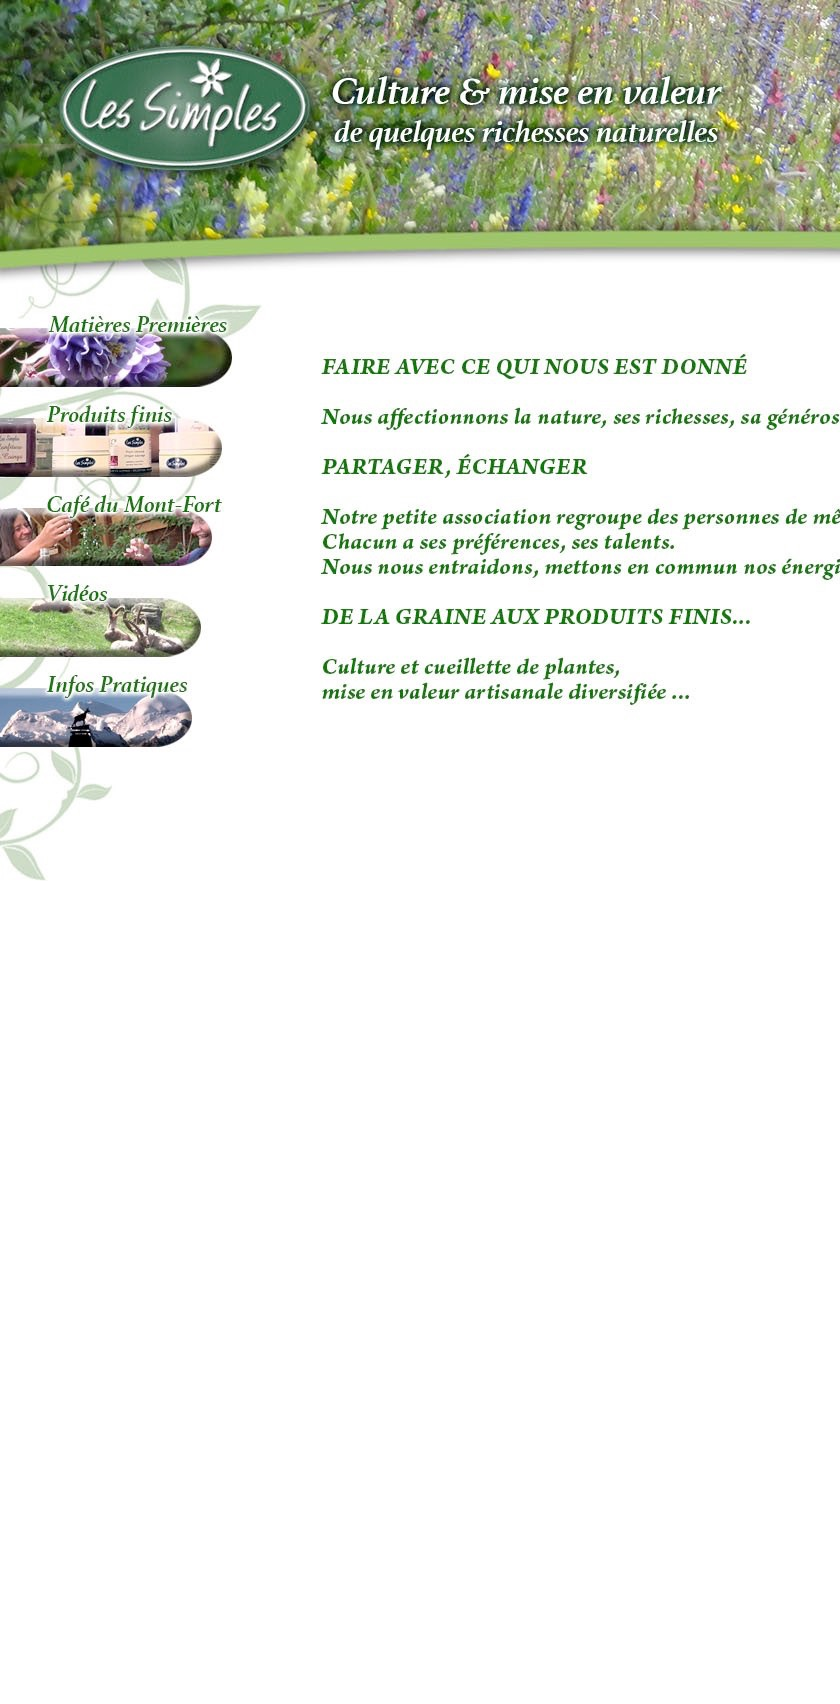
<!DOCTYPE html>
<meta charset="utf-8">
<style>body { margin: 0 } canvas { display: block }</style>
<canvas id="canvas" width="840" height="1704"></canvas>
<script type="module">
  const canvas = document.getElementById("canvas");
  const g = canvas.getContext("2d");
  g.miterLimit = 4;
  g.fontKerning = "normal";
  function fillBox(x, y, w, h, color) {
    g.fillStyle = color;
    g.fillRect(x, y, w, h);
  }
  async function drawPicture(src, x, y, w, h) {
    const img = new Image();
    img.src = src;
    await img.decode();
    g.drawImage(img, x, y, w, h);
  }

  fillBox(0, 0, 840, 1704, "#FFFFFF");
  await drawPicture("pic1.png", 0, 0, 840, 881);
</script>
